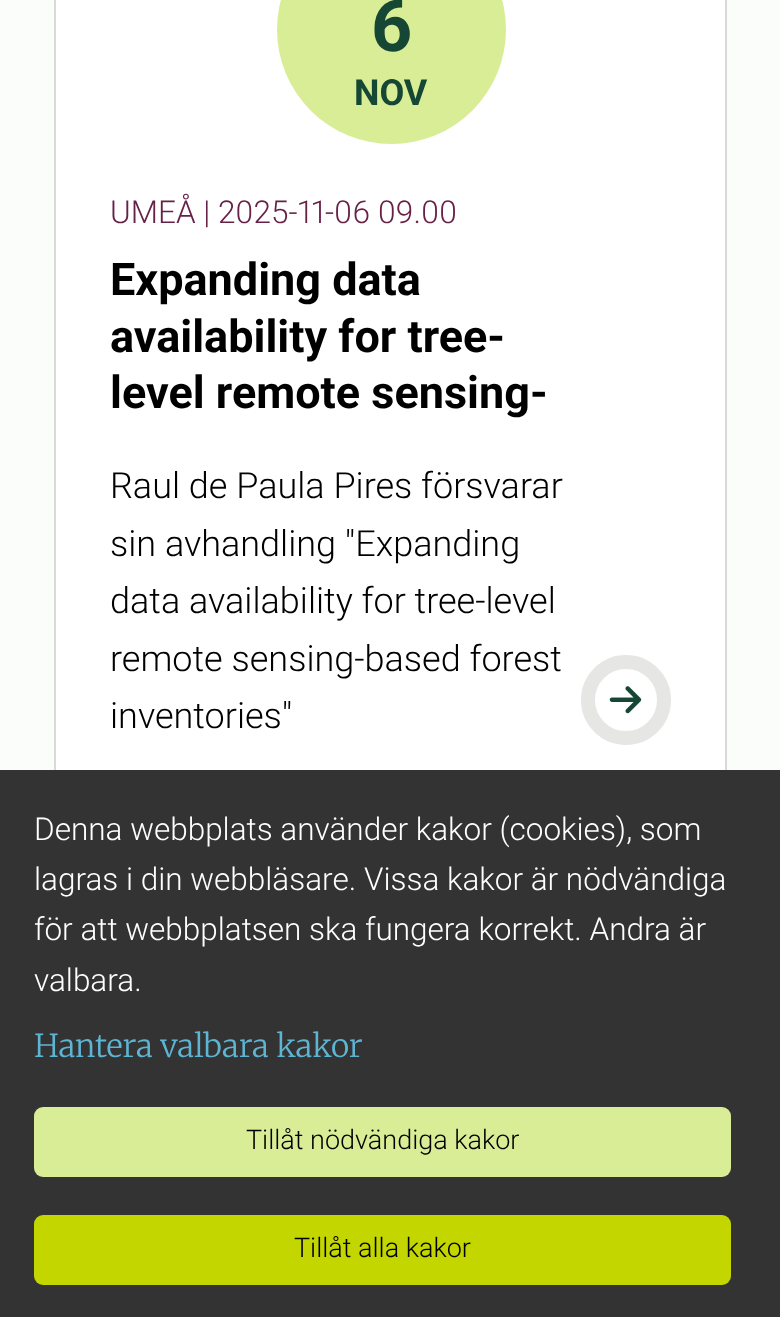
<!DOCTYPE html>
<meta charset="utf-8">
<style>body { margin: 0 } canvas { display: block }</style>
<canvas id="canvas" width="780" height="1317"></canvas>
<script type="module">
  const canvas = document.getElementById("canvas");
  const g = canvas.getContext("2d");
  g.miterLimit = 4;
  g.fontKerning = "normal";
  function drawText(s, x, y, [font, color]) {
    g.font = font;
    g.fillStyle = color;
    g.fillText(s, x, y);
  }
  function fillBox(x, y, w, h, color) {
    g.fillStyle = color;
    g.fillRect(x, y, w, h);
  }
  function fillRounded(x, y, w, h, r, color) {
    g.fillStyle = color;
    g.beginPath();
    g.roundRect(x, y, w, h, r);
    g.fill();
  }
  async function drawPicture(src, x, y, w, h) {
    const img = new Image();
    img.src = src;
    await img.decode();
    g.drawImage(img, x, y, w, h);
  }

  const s1 = ["bold 72px Roboto", "#154734"];
  const s2 = ["bold 36px Roboto", "#154734"];
  const s3 = ["300 31.5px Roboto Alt", "#672146"];
  const s4 = ["bold 45px Roboto", "#000000"];
  const s5 = ["300 36px Roboto", "#000000"];
  const s6 = ["300 31.5px Roboto", "#FFFFFF"];
  const s7 = ["300 31.5px Merriweather", "#5EB5D3"];
  const s8 = ["300 27px Roboto", "#000000"];

  fillBox(0, 0, 780, 1317, "#FBFDFA");
  fillBox(56, 0, 669, 770, "#FFFFFF");
  g.strokeStyle = "#D9D9D6";
  g.lineWidth = 2;
  g.strokeRect(55, -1, 671, 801);
  g.fillStyle = "#D8ED96";
  g.beginPath();
  g.arc(391.5, 29.5, 114.5, 0, Math.PI * 2);
  g.fill();
  g.letterSpacing = "-4px";
  drawText("6", 371, 51, s1);
  g.letterSpacing = "0px";
  drawText("NOV", 354, 105, s2);
  drawText("UMEÅ | 2025-11-06 09.00", 110, 223, s3);
  drawText("Expanding data", 110, 295, s4);
  drawText("availability for tree-", 110, 352, s4);
  drawText("level remote sensing-", 110, 408, s4);
  drawText("Raul de Paula Pires försvarar", 110, 498, s5);
  drawText("sin avhandling \"Expanding", 110, 556, s5);
  drawText("data availability for tree-level", 110, 613, s5);
  drawText("remote sensing-based forest", 110, 671, s5);
  drawText("inventories\"", 110, 728, s5);
  g.beginPath();
  g.arc(626, 700, 38, 0, Math.PI * 2);
  g.strokeStyle = "#E6E6E4";
  g.lineWidth = 14;
  g.stroke();
  await drawPicture("pic1.png", 609, 686, 33, 28);
  fillBox(0, 770, 780, 547, "#333333");
  drawText("Denna webbplats använder kakor (cookies), som", 34, 840, s6);
  drawText("lagras i din webbläsare. Vissa kakor är nödvändiga", 34, 890, s6);
  drawText("för att webbplatsen ska fungera korrekt. Andra är", 34, 940, s6);
  drawText("valbara.", 34, 991, s6);
  drawText("Hantera valbara kakor", 34, 1057, s7);
  fillRounded(34, 1107, 697, 70, 9, "#D8ED96");
  drawText("Tillåt nödvändiga kakor", 246, 1149, s8);
  fillRounded(34, 1215, 697, 70, 9, "#C4D600");
  drawText("Tillåt alla kakor", 294, 1257, s8);
</script>
